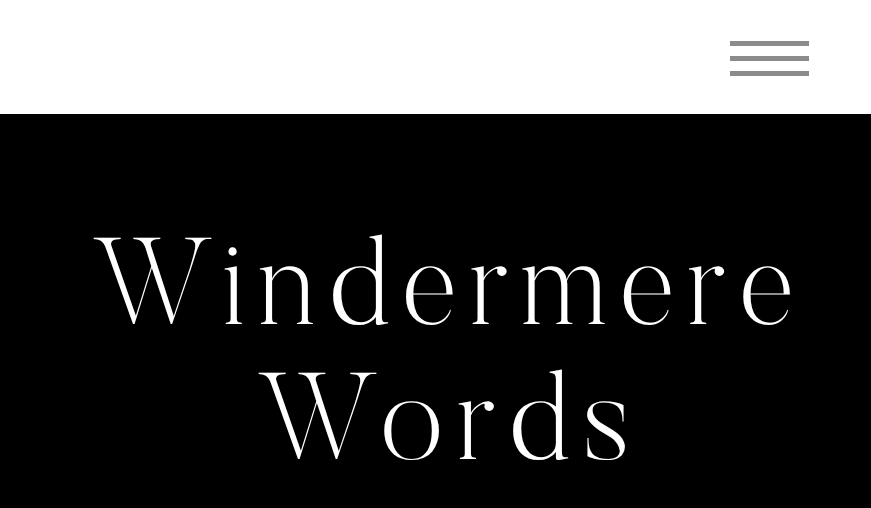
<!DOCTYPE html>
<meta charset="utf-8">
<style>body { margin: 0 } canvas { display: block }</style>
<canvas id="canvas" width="871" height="508"></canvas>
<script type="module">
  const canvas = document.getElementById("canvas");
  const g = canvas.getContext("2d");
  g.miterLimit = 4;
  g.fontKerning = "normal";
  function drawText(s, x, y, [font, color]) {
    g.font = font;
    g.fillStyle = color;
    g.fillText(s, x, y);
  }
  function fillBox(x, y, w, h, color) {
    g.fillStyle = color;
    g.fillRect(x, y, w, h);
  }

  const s1 = ["200 122.5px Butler", "#FFFFFF"];

  fillBox(0, 0, 871, 508, "#000000");
  fillBox(0, 0, 871, 114, "#FFFFFF");
  g.fillStyle = "#8B8B8B";
  g.beginPath();
  g.moveTo(730, 41);
  g.lineTo(809, 41);
  g.lineTo(809, 46);
  g.lineTo(730, 46);
  g.closePath();
  g.moveTo(730, 56);
  g.lineTo(809, 56);
  g.lineTo(809, 61);
  g.lineTo(730, 61);
  g.closePath();
  g.moveTo(730, 71);
  g.lineTo(809, 71);
  g.lineTo(809, 76);
  g.lineTo(730, 76);
  g.closePath();
  g.fill();
  g.letterSpacing = "12.25px";
  drawText("Windermere", 92, 324, s1);
  drawText("Words", 257, 459, s1);
</script>
